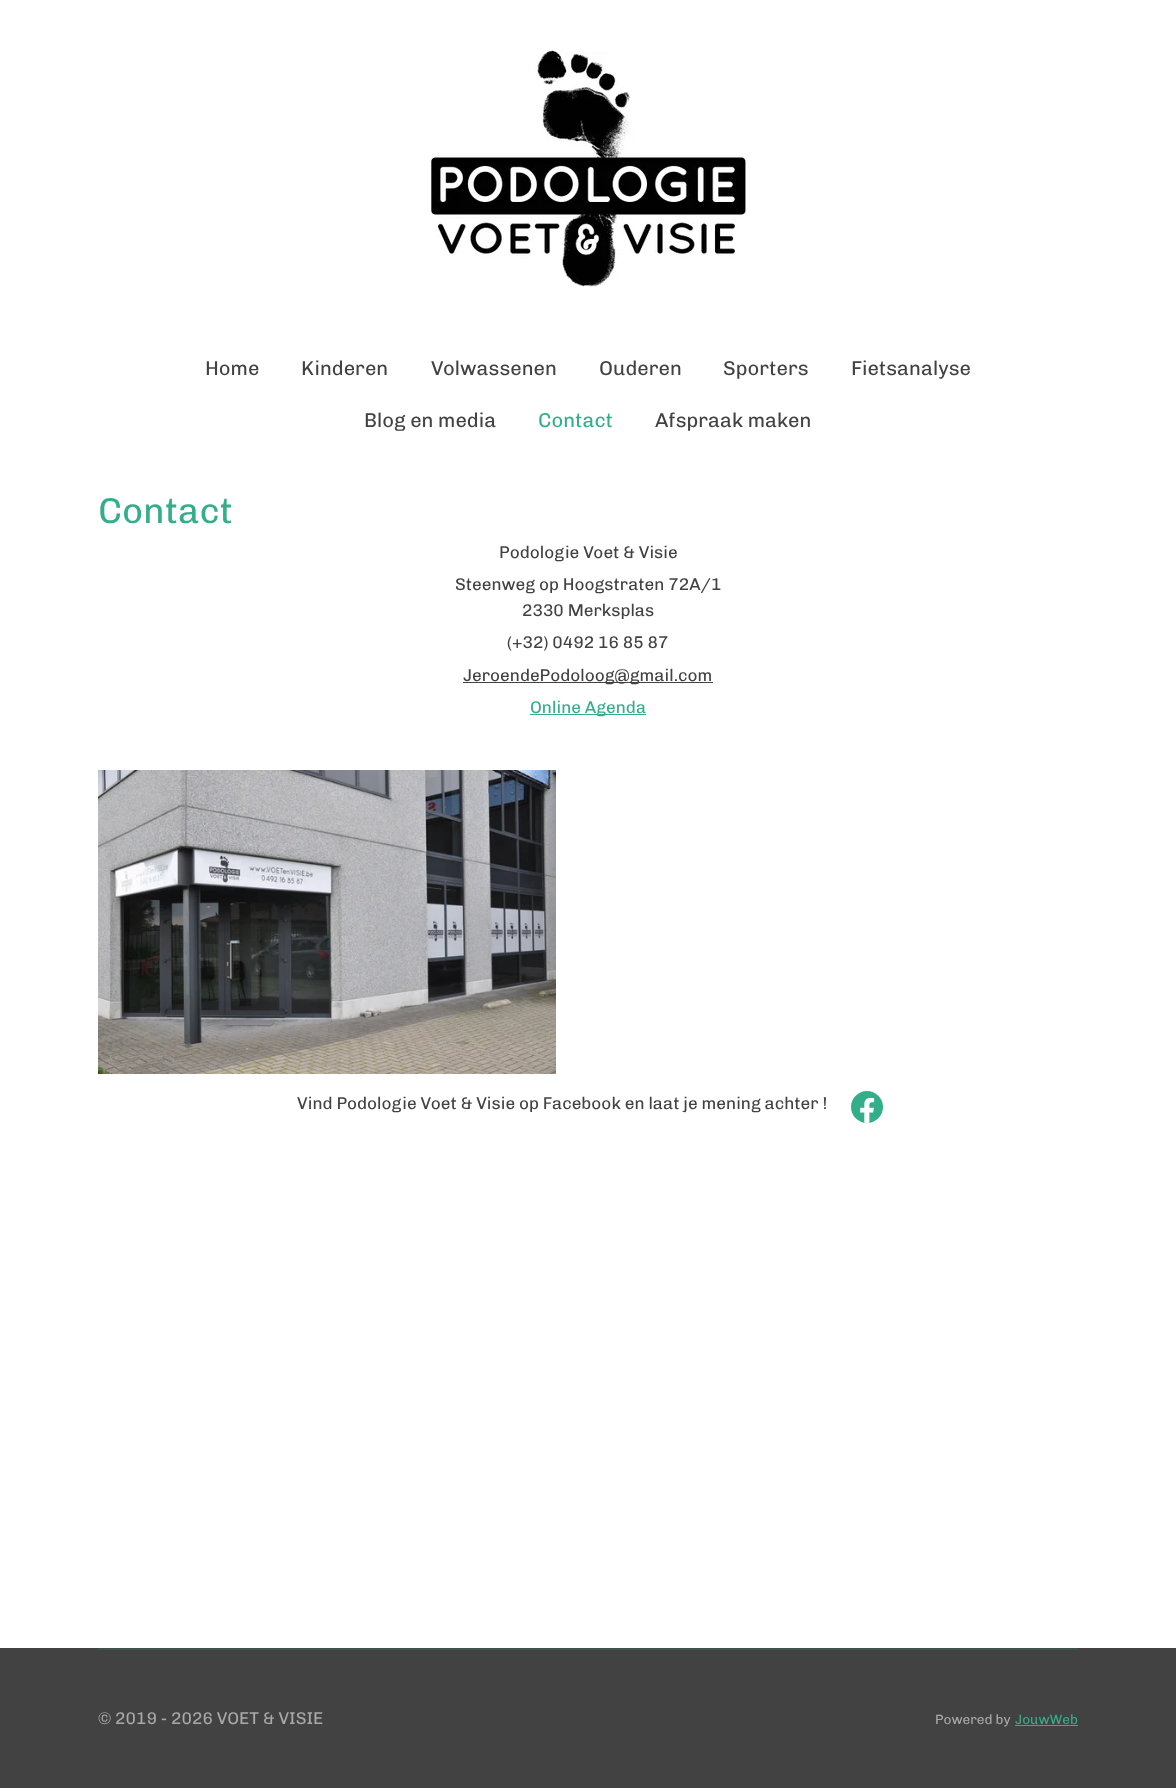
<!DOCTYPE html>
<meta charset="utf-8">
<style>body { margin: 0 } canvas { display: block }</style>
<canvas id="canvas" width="1176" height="1788"></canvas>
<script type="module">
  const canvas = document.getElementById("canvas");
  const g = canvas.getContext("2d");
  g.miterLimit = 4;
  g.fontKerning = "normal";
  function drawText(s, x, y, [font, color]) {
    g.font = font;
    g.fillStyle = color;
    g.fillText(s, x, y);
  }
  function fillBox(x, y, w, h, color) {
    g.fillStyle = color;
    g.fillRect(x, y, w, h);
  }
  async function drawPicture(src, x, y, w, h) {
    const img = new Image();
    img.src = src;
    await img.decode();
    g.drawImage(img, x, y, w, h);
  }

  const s1 = ["20px Chivo", "#424242"];
  const s2 = ["20px Chivo", "#34AE8A"];
  const s3 = ["36px Chivo", "#34AE8A"];
  const s4 = ["17px Chivo", "#424242"];
  const s5 = ["17px Chivo", "#34AE8A"];
  const s6 = ["17px Chivo", "#A8A8A8"];
  const s7 = ["13.5px Chivo", "#A8A8A8"];
  const s8 = ["13.5px Chivo", "#34AE8A"];

  fillBox(0, 0, 1176, 1788, "#FFFFFF");
  await drawPicture("pic1.png", 430, 50, 316, 237);
  drawText("Home", 205, 375, s1);
  drawText("Kinderen", 301, 375, s1);
  drawText("Volwassenen", 431, 375, s1);
  drawText("Ouderen", 599, 375, s1);
  drawText("Sporters", 723, 375, s1);
  drawText("Fietsanalyse", 851, 375, s1);
  drawText("Blog en media", 364, 427, s1);
  drawText("Contact", 538, 427, s2);
  drawText("Afspraak maken", 655, 427, s1);
  drawText("Contact", 98, 523, s3);
  drawText("Podologie Voet & Visie", 499, 558, s4);
  drawText("Steenweg op Hoogstraten 72A/1", 455, 590, s4);
  drawText("2330 Merksplas", 522, 616, s4);
  drawText("(+32) 0492 16 85 87", 507, 648, s4);
  fillBox(463, 682, 250, 1, "#424242");
  drawText("JeroendePodoloog@gmail.com", 463, 681, s4);
  fillBox(530, 714, 116, 1, "#34AE8A");
  drawText("Online Agenda", 530, 713, s5);
  await drawPicture("pic2.png", 98, 770, 458, 304);
  drawText("Vind Podologie Voet & Visie op Facebook en laat je mening achter !", 297, 1109, s4);
  g.fillStyle = "#34AE8A";
  g.beginPath();
  g.arc(867, 1107, 16, 0, Math.PI * 2);
  g.fill();
  await drawPicture("pic3.png", 860, 1097, 15, 26);
  fillBox(0, 1648, 1176, 140, "#424242");
  fillBox(98, 1648, 980, 2, "#40524D");
  drawText("© 2019 - 2026 VOET & VISIE", 98, 1724, s6);
  drawText("Powered by", 935, 1724, s7);
  drawText("JouwWeb", 1015, 1724, s8);
  fillBox(1015, 1725, 63, 1, "#34AE8A");
</script>
